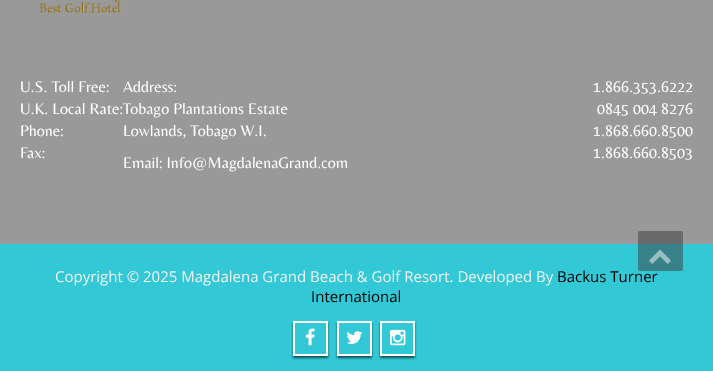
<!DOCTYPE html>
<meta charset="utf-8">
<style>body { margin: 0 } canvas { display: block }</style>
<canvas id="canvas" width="713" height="371"></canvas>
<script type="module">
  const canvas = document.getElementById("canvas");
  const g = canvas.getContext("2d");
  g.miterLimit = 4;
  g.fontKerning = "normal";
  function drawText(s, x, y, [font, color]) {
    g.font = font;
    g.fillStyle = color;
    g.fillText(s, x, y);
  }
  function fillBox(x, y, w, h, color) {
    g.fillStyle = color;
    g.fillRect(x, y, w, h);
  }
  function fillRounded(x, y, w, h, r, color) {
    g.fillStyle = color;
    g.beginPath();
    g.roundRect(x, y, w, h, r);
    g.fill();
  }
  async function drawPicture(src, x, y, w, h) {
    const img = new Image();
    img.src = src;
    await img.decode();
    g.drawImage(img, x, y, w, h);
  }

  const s1 = ["16px Belleza", "#FFFFFF"];
  const s2 = ["15px Open Sans", "#000000"];
  const s3 = ["15px Open Sans", "#F2F2F2"];

  fillBox(0, 0, 713, 371, "#999999");
  await drawPicture("pic1.png", 39, 0, 83, 13);
  drawText("U.S. Toll Free:", 20, 92, s1);
  drawText("U.K. Local Rate:Tobago Plantations Estate", 20, 114, s1);
  drawText("Phone:", 20, 136, s1);
  drawText("Fax:", 20, 158, s1);
  drawText("Address:", 123, 92, s1);
  drawText("Lowlands, Tobago W.I.", 123, 136, s1);
  drawText("1.866.353.6222", 593, 92, s1);
  drawText("0845 004 8276", 597, 114, s1);
  drawText("1.868.660.8500", 593, 136, s1);
  drawText("1.868.660.8503", 593, 158, s1);
  drawText("Email: Info@MagdalenaGrand.com", 123, 168, s1);
  fillBox(0, 244, 713, 127, "#32C8D5");
  drawText("Backus Turner", 557, 282, s2);
  fillRounded(638, 231, 45, 40, 2, "rgba(59, 59, 59, 0.5)");
  await drawPicture("pic2.png", 649, 250, 22, 14);
  drawText("Copyright © 2025 Magdalena Grand Beach & Golf Resort. Developed By", 55, 282, s3);
  drawText("International", 311, 302, s2);
  g.save();
  g.beginPath();
  g.moveTo(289, 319);
  g.lineTo(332, 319);
  g.lineTo(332, 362);
  g.lineTo(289, 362);
  g.closePath();
  g.moveTo(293, 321);
  g.lineTo(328, 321);
  g.lineTo(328, 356);
  g.lineTo(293, 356);
  g.closePath();
  g.clip("evenodd");
  g.fillStyle = "rgba(0, 0, 0, 0.6)";
  g.filter = "blur(1px)";
  g.beginPath();
  g.rect(293, 323, 35, 35);
  g.fill();
  g.filter = "none";
  g.restore();
  g.strokeStyle = "#FFFFFF";
  g.lineWidth = 2;
  g.strokeRect(294, 322, 33, 33);
  await drawPicture("pic3.png", 305, 328, 10, 18);
  g.save();
  g.beginPath();
  g.moveTo(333, 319);
  g.lineTo(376, 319);
  g.lineTo(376, 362);
  g.lineTo(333, 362);
  g.closePath();
  g.moveTo(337, 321);
  g.lineTo(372, 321);
  g.lineTo(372, 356);
  g.lineTo(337, 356);
  g.closePath();
  g.clip("evenodd");
  g.fillStyle = "rgba(0, 0, 0, 0.6)";
  g.filter = "blur(1px)";
  g.beginPath();
  g.rect(337, 323, 35, 35);
  g.fill();
  g.filter = "none";
  g.restore();
  g.strokeRect(338, 322, 33, 33);
  await drawPicture("pic4.png", 346, 331, 17, 13);
  g.save();
  g.beginPath();
  g.moveTo(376, 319);
  g.lineTo(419, 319);
  g.lineTo(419, 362);
  g.lineTo(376, 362);
  g.closePath();
  g.moveTo(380, 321);
  g.lineTo(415, 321);
  g.lineTo(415, 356);
  g.lineTo(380, 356);
  g.closePath();
  g.clip("evenodd");
  g.fillStyle = "rgba(0, 0, 0, 0.6)";
  g.filter = "blur(1px)";
  g.beginPath();
  g.rect(380, 323, 35, 35);
  g.fill();
  g.filter = "none";
  g.restore();
  g.strokeRect(381, 322, 33, 33);
  await drawPicture("pic5.png", 390, 329, 16, 17);
</script>
